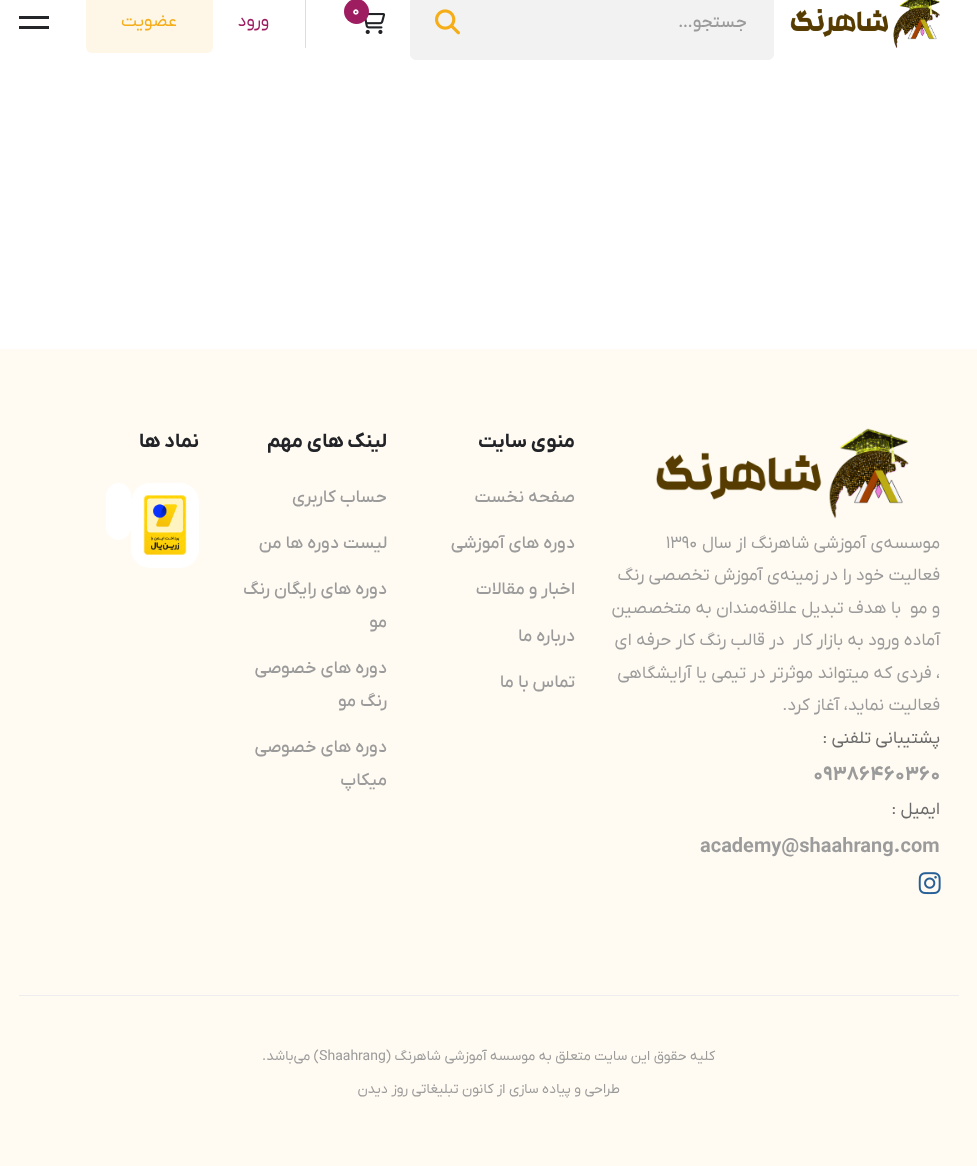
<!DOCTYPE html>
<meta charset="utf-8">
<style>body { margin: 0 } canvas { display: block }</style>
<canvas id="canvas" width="977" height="1166"></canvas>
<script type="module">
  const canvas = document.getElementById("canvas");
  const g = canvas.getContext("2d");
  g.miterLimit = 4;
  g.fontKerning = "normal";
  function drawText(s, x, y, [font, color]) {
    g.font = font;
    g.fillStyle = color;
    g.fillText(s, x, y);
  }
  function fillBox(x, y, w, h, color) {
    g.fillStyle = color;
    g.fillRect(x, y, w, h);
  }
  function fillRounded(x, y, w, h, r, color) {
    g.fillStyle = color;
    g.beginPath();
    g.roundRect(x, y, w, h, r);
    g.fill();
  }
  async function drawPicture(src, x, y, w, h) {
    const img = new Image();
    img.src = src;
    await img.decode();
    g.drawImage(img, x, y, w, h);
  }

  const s1 = ["bold 15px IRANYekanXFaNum", "#FFFFFF"];
  const s2 = ["500 17.5px IRANYekanXFaNum", "#9B9B9B"];
  const s3 = ["17.5px IRANYekanXFaNum", "#9E1C60"];
  const s4 = ["17.5px IRANYekanXFaNum", "#F5AD18"];
  const s5 = ["17.5px IRANYekanXFaNum", "#9B9B9B"];
  const s6 = ["17.5px IRANYekanXFaNum", "#696969"];
  const s7 = ["bold 20px IRANYekanXFaNum", "#9B9B9B"];
  const s8 = ["bold 20px IRANYekanXFaNum", "#212327"];
  const s9 = ["14px IRANYekanXFaNum", "#9B9B9B"];

  fillBox(0, 0, 977, 1166, "#FFFFFF");
  await drawPicture("pic1.png", 790, 0, 150, 48);
  await drawPicture("pic2.png", 364, 13, 22, 21);
  g.fillStyle = "#9E1C60";
  g.beginPath();
  g.arc(356.5, 11.5, 12.5, 0, Math.PI * 2);
  g.fill();
  drawText("0", 352, 15, s1);
  g.fillStyle = "#F2F2F2";
  g.beginPath();
  g.roundRect(410.5, -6.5, 363, 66, 5.5);
  g.fill();
  g.strokeStyle = "#F2F2F2";
  g.stroke();
  g.direction = "rtl";
  drawText("جستجو…", 747, 27, s2);
  await drawPicture("pic3.png", 435, 9, 25, 26);
  fillBox(305, 0, 1, 48, "#D9DEE3");
  drawText("ورود", 269, 26, s3);
  fillRounded(86, -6, 127, 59, 6, "#FEF7E8");
  drawText("عضویت", 177, 26, s4);
  fillBox(19, 16, 30, 3, "#232529");
  fillBox(19, 26, 30, 3, "#232529");
  fillBox(0, 349, 977, 817, "#FFFBF2");
  await drawPicture("pic4.png", 656, 428, 253, 91);
  drawText("موسسه‌ی آموزشی شاهرنگ از سال", 940, 548, s5);
  g.direction = "ltr";
  drawText("۱۳۹۰", 666, 548, s5);
  g.direction = "rtl";
  drawText("فعالیت خود را در زمینه‌ی آموزش تخصصی رنگ", 940, 580, s5);
  drawText("و مو  با هدف تبدیل علاقه‌مندان به متخصصین", 940, 613, s5);
  drawText("آماده ورود به بازار کار  در قالب رنگ کار حرفه ای", 940, 645, s5);
  drawText("، فردی که میتواند موثرتر در تیمی یا آرایشگاهی", 940, 678, s5);
  drawText("فعالیت نماید، آغاز کرد.", 940, 710, s5);
  drawText("پشتیبانی تلفنی :", 940, 743, s6);
  g.direction = "ltr";
  drawText("09386460360", 813, 780, s7);
  g.direction = "rtl";
  drawText("ایمیل :", 940, 814, s6);
  g.direction = "ltr";
  drawText("academy@shaahrang.com", 700, 852, s7);
  await drawPicture("pic5.png", 918, 872, 23, 23);
  g.direction = "rtl";
  drawText("منوی سایت", 575, 447, s8);
  drawText("صفحه نخست", 575, 502, s2);
  drawText("دوره های آموزشی", 575, 548, s2);
  drawText("اخبار و مقالات", 575, 594, s2);
  drawText("درباره ما", 575, 641, s2);
  drawText("تماس با ما", 575, 687, s2);
  drawText("لینک های مهم", 387, 447, s8);
  drawText("حساب کاربری", 387, 502, s2);
  drawText("لیست دوره ها من", 387, 548, s2);
  drawText("دوره های رایگان رنگ", 387, 594, s2);
  drawText("مو", 387, 627, s2);
  drawText("دوره های خصوصی", 387, 673, s2);
  drawText("رنگ مو", 387, 706, s2);
  drawText("دوره های خصوصی", 387, 752, s2);
  drawText("میکاپ", 387, 785, s2);
  drawText("نماد ها", 199, 447, s8);
  fillRounded(131, 483, 68, 85, 19, "#FFFFFF");
  await drawPicture("pic6.png", 143, 495, 44, 60);
  fillRounded(106, 483, 25, 57, 12.5, "#FFFFFF");
  fillBox(19, 995, 940, 1, "#EDEDED");
  drawText("کلیه حقوق این سایت متعلق به موسسه آموزشی شاهرنگ (", 715, 1060, s9);
  g.direction = "ltr";
  drawText("Shaahrang", 319, 1060, s9);
  g.direction = "rtl";
  drawText(") می‌باشد.", 319, 1060, s9);
  drawText("طراحی و پیاده سازی از کانون تبلیغاتی روز دیدن", 620, 1093, s9);
</script>
